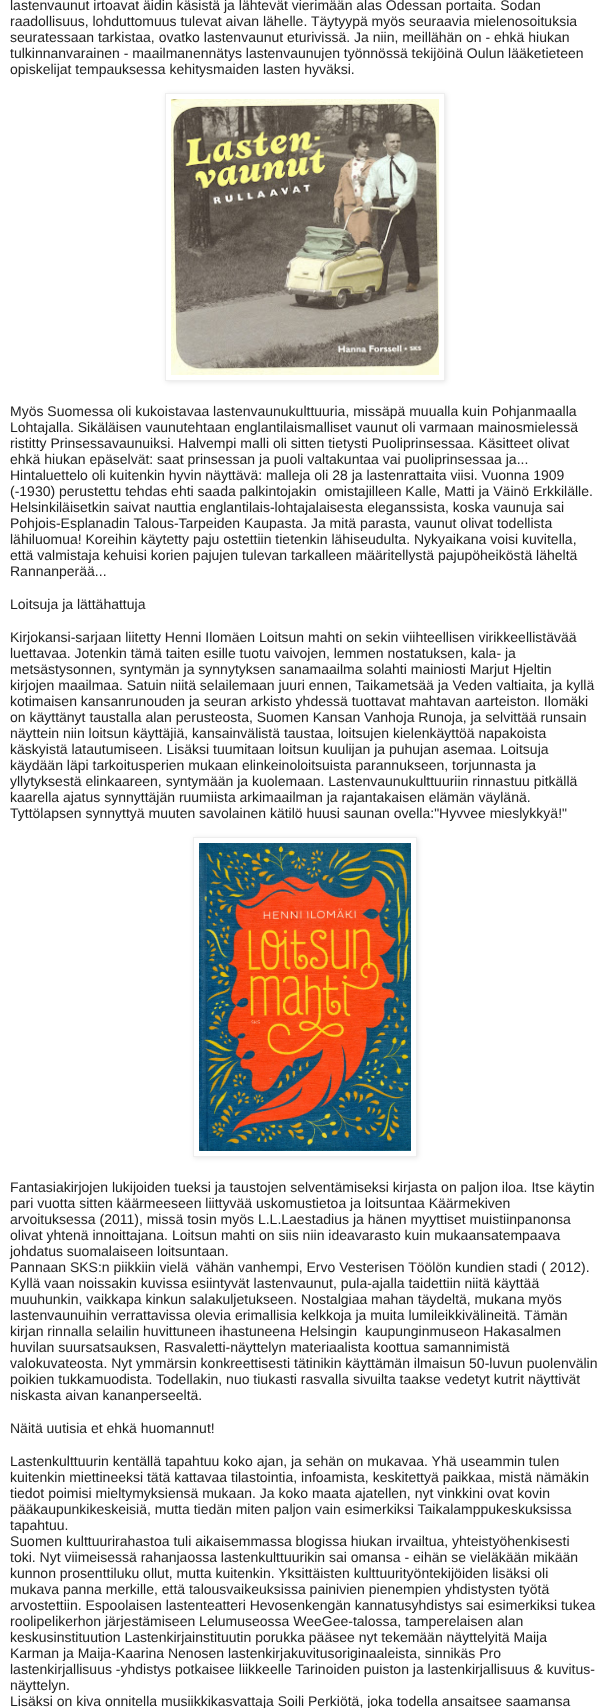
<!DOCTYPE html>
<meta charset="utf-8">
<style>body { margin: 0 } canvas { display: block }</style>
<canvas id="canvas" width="609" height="1708"></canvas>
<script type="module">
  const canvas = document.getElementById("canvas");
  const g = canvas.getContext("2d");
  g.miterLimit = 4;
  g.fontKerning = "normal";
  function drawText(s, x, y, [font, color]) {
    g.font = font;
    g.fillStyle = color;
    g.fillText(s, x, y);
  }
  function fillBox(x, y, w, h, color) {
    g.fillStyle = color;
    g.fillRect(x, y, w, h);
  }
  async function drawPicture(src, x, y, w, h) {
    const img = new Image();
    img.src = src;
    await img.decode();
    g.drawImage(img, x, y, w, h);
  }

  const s1 = ["14px Liberation Sans", "#222222"];

  fillBox(0, 0, 609, 1708, "#FFFFFF");
  drawText("lastenvaunut irtoavat äidin käsistä ja lähtevät vierimään alas Odessan portaita. Sodan", 10, 10, s1);
  drawText("raadollisuus, lohduttomuus tulevat aivan lähelle. Täytyypä myös seuraavia mielenosoituksia", 10, 26, s1);
  drawText("seuratessaan tarkistaa, ovatko lastenvaunut eturivissä. Ja niin, meillähän on - ehkä hiukan", 10, 42, s1);
  drawText("tulkinnanvarainen - maailmanennätys lastenvaunujen työnnössä tekijöinä Oulun lääketieteen", 10, 58, s1);
  drawText("opiskelijat tempauksessa kehitysmaiden lasten hyväksi.", 10, 74, s1);
  g.save();
  g.beginPath();
  g.moveTo(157, 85);
  g.lineTo(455, 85);
  g.lineTo(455, 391);
  g.lineTo(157, 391);
  g.closePath();
  g.moveTo(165, 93);
  g.lineTo(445, 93);
  g.lineTo(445, 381);
  g.lineTo(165, 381);
  g.closePath();
  g.clip("evenodd");
  g.fillStyle = "rgba(0, 0, 0, 0.1)";
  g.filter = "blur(2.5px)";
  g.beginPath();
  g.rect(166, 94, 280, 288);
  g.fill();
  g.filter = "none";
  g.restore();
  g.strokeStyle = "#EEEEEE";
  g.strokeRect(165.5, 93.5, 279, 287);
  await drawPicture("pic1.png", 171, 99, 268, 276);
  drawText("Myös Suomessa oli kukoistavaa lastenvaunukulttuuria, missäpä muualla kuin Pohjanmaalla", 10, 416, s1);
  drawText("Lohtajalla. Sikäläisen vaunutehtaan englantilaismalliset vaunut oli varmaan mainosmielessä", 10, 432, s1);
  drawText("ristitty Prinsessavaunuiksi. Halvempi malli oli sitten tietysti Puoliprinsessaa. Käsitteet olivat", 10, 448, s1);
  drawText("ehkä hiukan epäselvät: saat prinsessan ja puoli valtakuntaa vai puoliprinsessaa ja...", 10, 464, s1);
  drawText("Hintaluettelo oli kuitenkin hyvin näyttävä: malleja oli 28 ja lastenrattaita viisi. Vuonna 1909", 10, 480, s1);
  drawText("(-1930) perustettu tehdas ehti saada palkintojakin  omistajilleen Kalle, Matti ja Väinö Erkkilälle.", 10, 496, s1);
  drawText("Helsinkiläisetkin saivat nauttia englantilais-lohtajalaisesta eleganssista, koska vaunuja sai", 10, 512, s1);
  drawText("Pohjois-Esplanadin Talous-Tarpeiden Kaupasta. Ja mitä parasta, vaunut olivat todellista", 10, 528, s1);
  drawText("lähiluomua! Koreihin käytetty paju ostettiin tietenkin lähiseudulta. Nykyaikana voisi kuvitella,", 10, 544, s1);
  drawText("että valmistaja kehuisi korien pajujen tulevan tarkalleen määritellystä pajupöheiköstä läheltä", 10, 560, s1);
  drawText("Rannanperää...", 10, 576, s1);
  drawText("Loitsuja ja lättähattuja", 10, 609, s1);
  drawText("Kirjokansi-sarjaan liitetty Henni Ilomäen Loitsun mahti on sekin viihteellisen virikkeellistävää", 10, 642, s1);
  drawText("luettavaa. Jotenkin tämä taiten esille tuotu vaivojen, lemmen nostatuksen, kala- ja", 10, 658, s1);
  drawText("metsästysonnen, syntymän ja synnytyksen sanamaailma solahti mainiosti Marjut Hjeltin", 10, 674, s1);
  drawText("kirjojen maailmaa. Satuin niitä selailemaan juuri ennen, Taikametsää ja Veden valtiaita, ja kyllä", 10, 690, s1);
  drawText("kotimaisen kansanrunouden ja seuran arkisto yhdessä tuottavat mahtavan aarteiston. Ilomäki", 10, 706, s1);
  drawText("on käyttänyt taustalla alan perusteosta, Suomen Kansan Vanhoja Runoja, ja selvittää runsain", 10, 722, s1);
  drawText("näyttein niin loitsun käyttäjiä, kansainvälistä taustaa, loitsujen kielenkäyttöä napakoista", 10, 738, s1);
  drawText("käskyistä latautumiseen. Lisäksi tuumitaan loitsun kuulijan ja puhujan asemaa. Loitsuja", 10, 754, s1);
  drawText("käydään läpi tarkoitusperien mukaan elinkeinoloitsuista parannukseen, torjunnasta ja", 10, 770, s1);
  drawText("yllytyksestä elinkaareen, syntymään ja kuolemaan. Lastenvaunukulttuuriin rinnastuu pitkällä", 10, 786, s1);
  drawText("kaarella ajatus synnyttäjän ruumiista arkimaailman ja rajantakaisen elämän väylänä.", 10, 802, s1);
  drawText("Tyttölapsen synnyttyä muuten savolainen kätilö huusi saunan ovella:\"Hyvvee mieslykkyä!\"", 10, 818, s1);
  g.save();
  g.beginPath();
  g.moveTo(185, 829);
  g.lineTo(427, 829);
  g.lineTo(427, 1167);
  g.lineTo(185, 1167);
  g.closePath();
  g.moveTo(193, 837);
  g.lineTo(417, 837);
  g.lineTo(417, 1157);
  g.lineTo(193, 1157);
  g.closePath();
  g.clip("evenodd");
  g.fillStyle = "rgba(0, 0, 0, 0.1)";
  g.filter = "blur(2.5px)";
  g.beginPath();
  g.rect(194, 838, 224, 320);
  g.fill();
  g.filter = "none";
  g.restore();
  g.strokeRect(193.5, 837.5, 223, 319);
  await drawPicture("pic2.png", 199, 843, 212, 308);
  drawText("Fantasiakirjojen lukijoiden tueksi ja taustojen selventämiseksi kirjasta on paljon iloa. Itse käytin", 10, 1192, s1);
  drawText("pari vuotta sitten käärmeeseen liittyvää uskomustietoa ja loitsuntaa Käärmekiven", 10, 1208, s1);
  drawText("arvoituksessa (2011), missä tosin myös L.L.Laestadius ja hänen myyttiset muistiinpanonsa", 10, 1224, s1);
  drawText("olivat yhtenä innoittajana. Loitsun mahti on siis niin ideavarasto kuin mukaansatempaava", 10, 1240, s1);
  drawText("johdatus suomalaiseen loitsuntaan.", 10, 1256, s1);
  drawText("Pannaan SKS:n piikkiin vielä  vähän vanhempi, Ervo Vesterisen Töölön kundien stadi ( 2012).", 10, 1272, s1);
  drawText("Kyllä vaan noissakin kuvissa esiintyvät lastenvaunut, pula-ajalla taidettiin niitä käyttää", 10, 1288, s1);
  drawText("muuhunkin, vaikkapa kinkun salakuljetukseen. Nostalgiaa mahan täydeltä, mukana myös", 10, 1304, s1);
  drawText("lastenvaunuihin verrattavissa olevia erimallisia kelkkoja ja muita lumileikkivälineitä. Tämän", 10, 1320, s1);
  drawText("kirjan rinnalla selailin huvittuneen ihastuneena Helsingin  kaupunginmuseon Hakasalmen", 10, 1336, s1);
  drawText("huvilan suursatsauksen, Rasvaletti-näyttelyn materiaalista koottua samannimistä", 10, 1352, s1);
  drawText("valokuvateosta. Nyt ymmärsin konkreettisesti tätinikin käyttämän ilmaisun 50-luvun puolenvälin", 10, 1368, s1);
  drawText("poikien tukkamuodista. Todellakin, nuo tiukasti rasvalla sivuilta taakse vedetyt kutrit näyttivät", 10, 1384, s1);
  drawText("niskasta aivan kananperseeltä.", 10, 1400, s1);
  drawText("Näitä uutisia et ehkä huomannut!", 10, 1433, s1);
  drawText("Lastenkulttuurin kentällä tapahtuu koko ajan, ja sehän on mukavaa. Yhä useammin tulen", 10, 1466, s1);
  drawText("kuitenkin miettineeksi tätä kattavaa tilastointia, infoamista, keskitettyä paikkaa, mistä nämäkin", 10, 1482, s1);
  drawText("tiedot poimisi mieltymyksiensä mukaan. Ja koko maata ajatellen, nyt vinkkini ovat kovin", 10, 1498, s1);
  drawText("pääkaupunkikeskeisiä, mutta tiedän miten paljon vain esimerkiksi Taikalamppukeskuksissa", 10, 1514, s1);
  drawText("tapahtuu.", 10, 1530, s1);
  drawText("Suomen kulttuurirahastoa tuli aikaisemmassa blogissa hiukan irvailtua, yhteistyöhenkisesti", 10, 1546, s1);
  drawText("toki. Nyt viimeisessä rahanjaossa lastenkulttuurikin sai omansa - eihän se vieläkään mikään", 10, 1562, s1);
  drawText("kunnon prosenttiluku ollut, mutta kuitenkin. Yksittäisten kulttuurityöntekijöiden lisäksi oli", 10, 1578, s1);
  drawText("mukava panna merkille, että talousvaikeuksissa painivien pienempien yhdistysten työtä", 10, 1594, s1);
  drawText("arvostettiin. Espoolaisen lastenteatteri Hevosenkengän kannatusyhdistys sai esimerkiksi tukea", 10, 1610, s1);
  drawText("roolipelikerhon järjestämiseen Lelumuseossa WeeGee-talossa, tamperelaisen alan", 10, 1626, s1);
  drawText("keskusinstituution Lastenkirjainstituutin porukka pääsee nyt tekemään näyttelyitä Maija", 10, 1642, s1);
  drawText("Karman ja Maija-Kaarina Nenosen lastenkirjakuvitusoriginaaleista, sinnikäs Pro", 10, 1658, s1);
  drawText("lastenkirjallisuus -yhdistys potkaisee liikkeelle Tarinoiden puiston ja lastenkirjallisuus & kuvitus-", 10, 1674, s1);
  drawText("näyttelyn.", 10, 1690, s1);
  drawText("Lisäksi on kiva onnitella musiikkikasvattaja Soili Perkiötä, joka todella ansaitsee saamansa", 10, 1706, s1);
</script>
